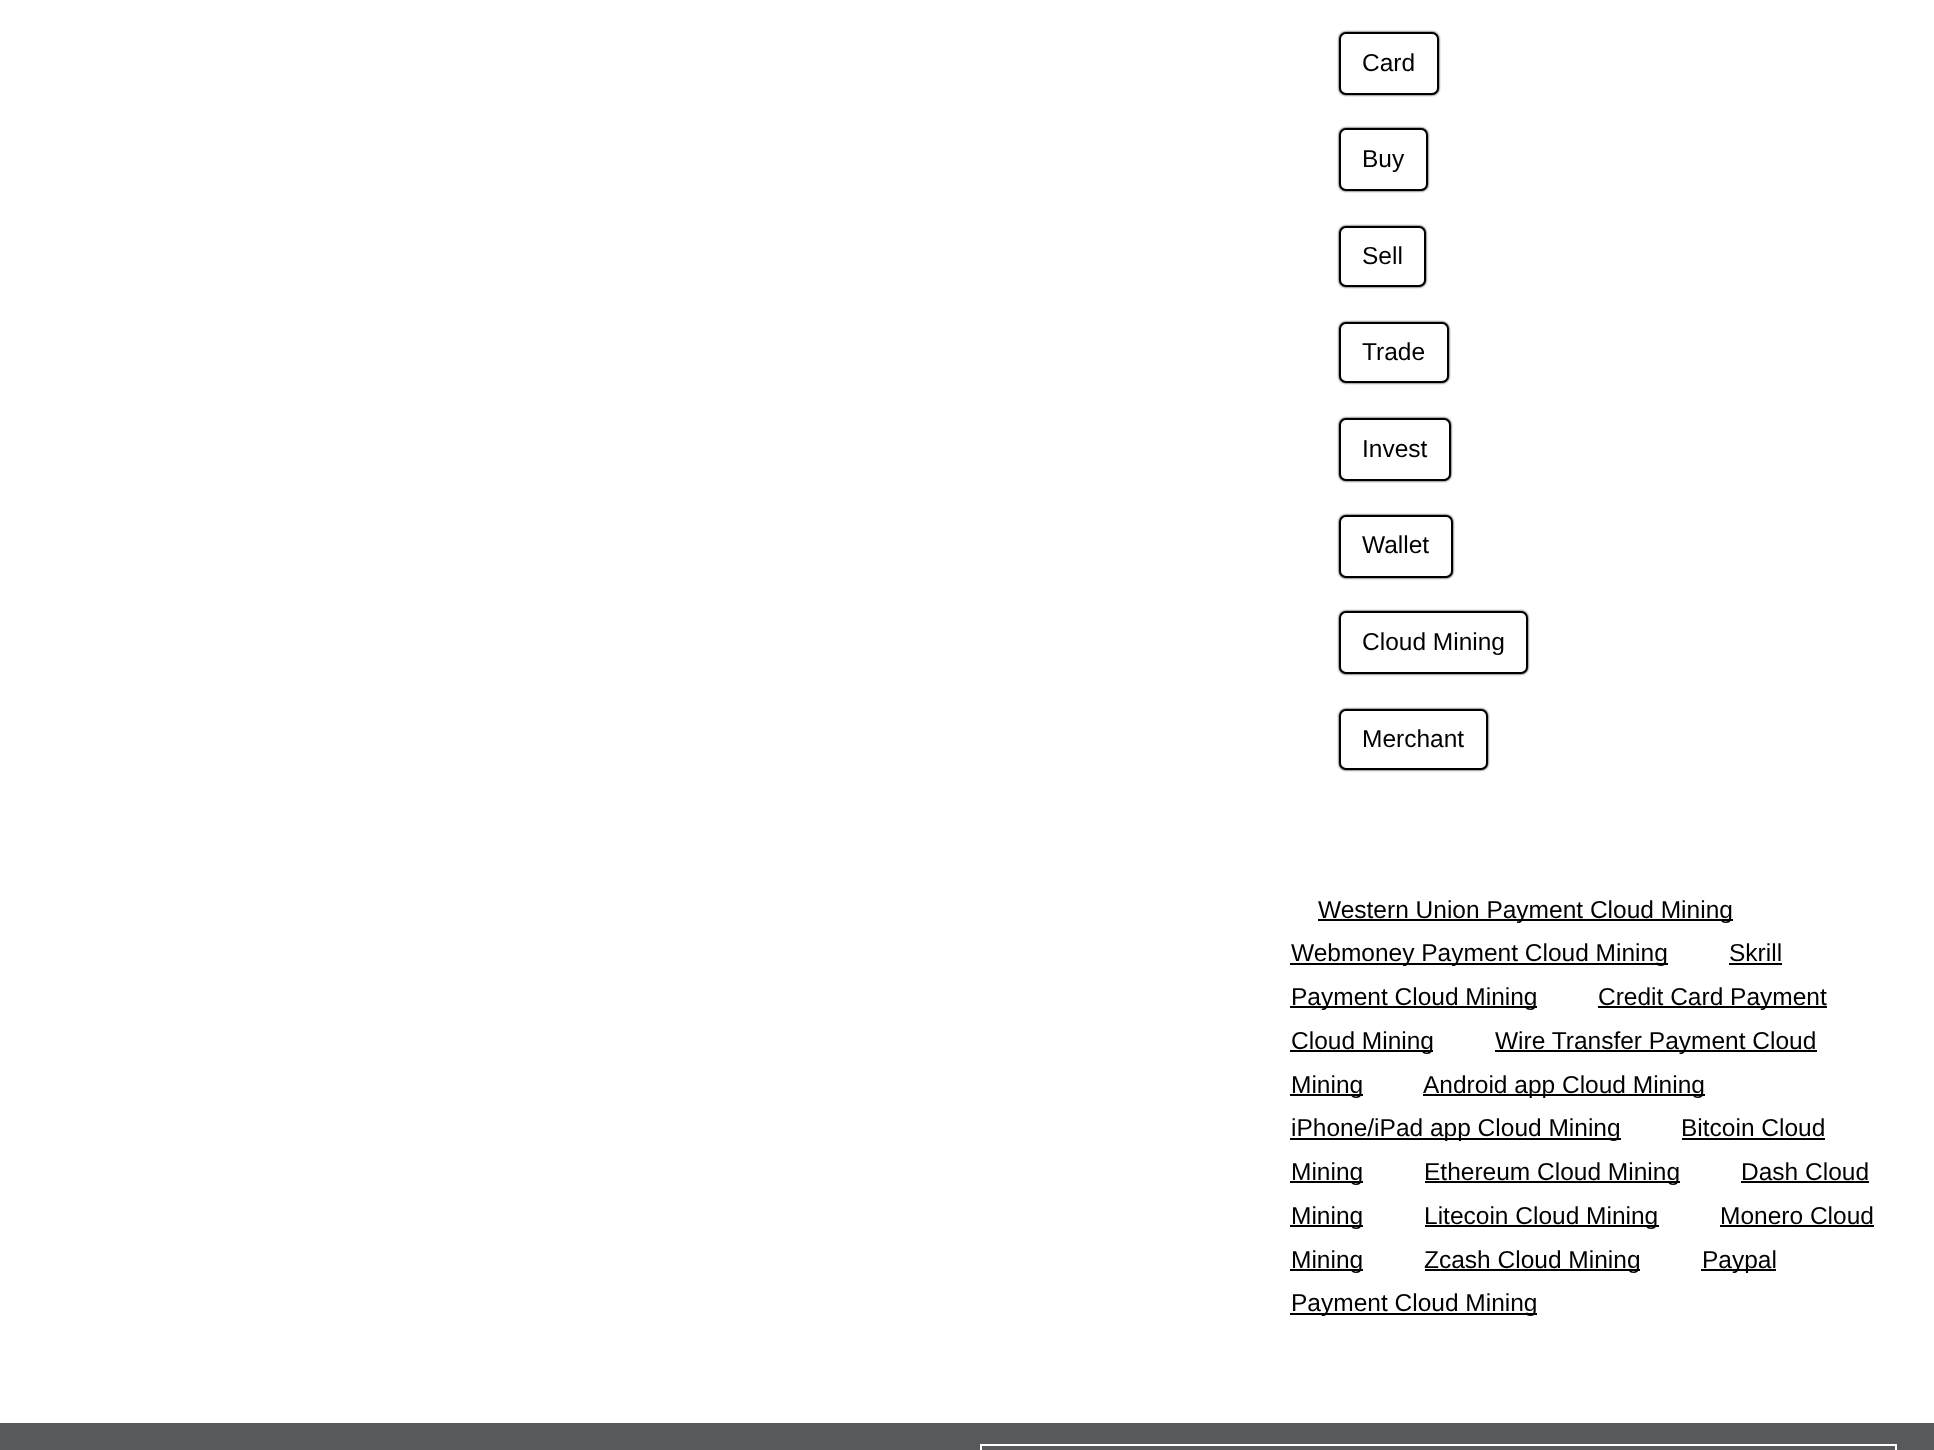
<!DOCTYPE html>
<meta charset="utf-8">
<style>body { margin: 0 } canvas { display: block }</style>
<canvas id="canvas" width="1934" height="1450"></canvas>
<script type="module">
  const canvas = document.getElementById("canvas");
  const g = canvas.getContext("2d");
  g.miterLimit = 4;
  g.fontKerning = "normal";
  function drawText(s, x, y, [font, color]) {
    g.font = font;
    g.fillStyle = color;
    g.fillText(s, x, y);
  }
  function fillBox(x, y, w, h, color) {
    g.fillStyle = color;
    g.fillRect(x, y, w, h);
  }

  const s1 = ["24.5px Liberation Sans", "#000000"];

  fillBox(0, 0, 1934, 1450, "#58595B");
  fillBox(0, 0, 1934, 1423, "#FFFFFF");
  g.fillStyle = "#000000";
  g.filter = "blur(1px)";
  g.beginPath();
  g.roundRect(1339, 32, 100, 63, 7);
  g.fill();
  g.filter = "none";
  g.fillStyle = "#FFFFFF";
  g.beginPath();
  g.roundRect(1340, 33, 98, 61, 6);
  g.fill();
  g.strokeStyle = "#000000";
  g.lineWidth = 2;
  g.stroke();
  drawText("Card", 1362, 71, s1);
  g.filter = "blur(1px)";
  g.beginPath();
  g.roundRect(1339, 128, 89, 63, 7);
  g.fill();
  g.filter = "none";
  g.fillStyle = "#FFFFFF";
  g.beginPath();
  g.roundRect(1340, 129, 87, 61, 6);
  g.fill();
  g.stroke();
  drawText("Buy", 1362, 167, s1);
  g.filter = "blur(1px)";
  g.beginPath();
  g.roundRect(1339, 226, 87, 61, 7);
  g.fill();
  g.filter = "none";
  g.fillStyle = "#FFFFFF";
  g.beginPath();
  g.roundRect(1340, 227, 85, 59, 6);
  g.fill();
  g.stroke();
  drawText("Sell", 1362, 264, s1);
  g.filter = "blur(1px)";
  g.beginPath();
  g.roundRect(1339, 322, 110, 61, 7);
  g.fill();
  g.filter = "none";
  g.fillStyle = "#FFFFFF";
  g.beginPath();
  g.roundRect(1340, 323, 108, 59, 6);
  g.fill();
  g.stroke();
  drawText("Trade", 1362, 360, s1);
  g.filter = "blur(1px)";
  g.beginPath();
  g.roundRect(1339, 418, 112, 63, 7);
  g.fill();
  g.filter = "none";
  g.fillStyle = "#FFFFFF";
  g.beginPath();
  g.roundRect(1340, 419, 110, 61, 6);
  g.fill();
  g.stroke();
  drawText("Invest", 1362, 457, s1);
  g.filter = "blur(1px)";
  g.beginPath();
  g.roundRect(1339, 515, 114, 63, 7);
  g.fill();
  g.filter = "none";
  g.fillStyle = "#FFFFFF";
  g.beginPath();
  g.roundRect(1340, 516, 112, 61, 6);
  g.fill();
  g.stroke();
  drawText("Wallet", 1362, 553, s1);
  g.filter = "blur(1px)";
  g.beginPath();
  g.roundRect(1339, 611, 189, 63, 7);
  g.fill();
  g.filter = "none";
  g.fillStyle = "#FFFFFF";
  g.beginPath();
  g.roundRect(1340, 612, 187, 61, 6);
  g.fill();
  g.stroke();
  drawText("Cloud Mining", 1362, 650, s1);
  g.filter = "blur(1px)";
  g.beginPath();
  g.roundRect(1339, 709, 149, 61, 7);
  g.fill();
  g.filter = "none";
  g.fillStyle = "#FFFFFF";
  g.beginPath();
  g.roundRect(1340, 710, 147, 59, 6);
  g.fill();
  g.stroke();
  drawText("Merchant", 1362, 747, s1);
  fillBox(1318, 919, 415, 2, "#000000");
  drawText("Western Union Payment Cloud Mining", 1318, 918, s1);
  fillBox(1290, 963, 378, 2, "#000000");
  drawText("Webmoney Payment Cloud Mining", 1291, 961, s1);
  drawText("Skrill", 1729, 961, s1);
  fillBox(1729, 963, 53, 2, "#000000");
  fillBox(1290, 1006, 247, 2, "#000000");
  drawText("Payment Cloud Mining", 1291, 1005, s1);
  fillBox(1598, 1006, 229, 2, "#000000");
  drawText("Credit Card Payment", 1598, 1005, s1);
  fillBox(1290, 1050, 143, 2, "#000000");
  drawText("Cloud Mining", 1291, 1049, s1);
  fillBox(1495, 1050, 322, 2, "#000000");
  drawText("Wire Transfer Payment Cloud", 1495, 1049, s1);
  fillBox(1290, 1094, 73, 2, "#000000");
  drawText("Mining", 1291, 1093, s1);
  fillBox(1423, 1094, 282, 2, "#000000");
  drawText("Android app Cloud Mining", 1423, 1093, s1);
  fillBox(1290, 1138, 331, 2, "#000000");
  drawText("iPhone/iPad app Cloud Mining", 1291, 1136, s1);
  drawText("Bitcoin Cloud", 1681, 1136, s1);
  fillBox(1682, 1138, 143, 2, "#000000");
  fillBox(1290, 1181, 73, 2, "#000000");
  drawText("Mining", 1291, 1180, s1);
  fillBox(1425, 1181, 255, 2, "#000000");
  drawText("Ethereum Cloud Mining", 1424, 1180, s1);
  drawText("Dash Cloud", 1741, 1180, s1);
  fillBox(1741, 1181, 128, 2, "#000000");
  fillBox(1290, 1225, 73, 2, "#000000");
  drawText("Mining", 1291, 1224, s1);
  fillBox(1425, 1225, 234, 2, "#000000");
  drawText("Litecoin Cloud Mining", 1424, 1224, s1);
  drawText("Monero Cloud", 1720, 1224, s1);
  fillBox(1720, 1225, 154, 2, "#000000");
  fillBox(1290, 1269, 73, 2, "#000000");
  drawText("Mining", 1291, 1268, s1);
  fillBox(1425, 1269, 215, 2, "#000000");
  drawText("Zcash Cloud Mining", 1424, 1268, s1);
  fillBox(1701, 1269, 75, 2, "#000000");
  drawText("Paypal", 1702, 1268, s1);
  fillBox(1290, 1313, 247, 2, "#000000");
  drawText("Payment Cloud Mining", 1291, 1311, s1);
  g.strokeStyle = "#FFFFFF";
  g.strokeRect(981, 1445, 915, 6);
</script>
